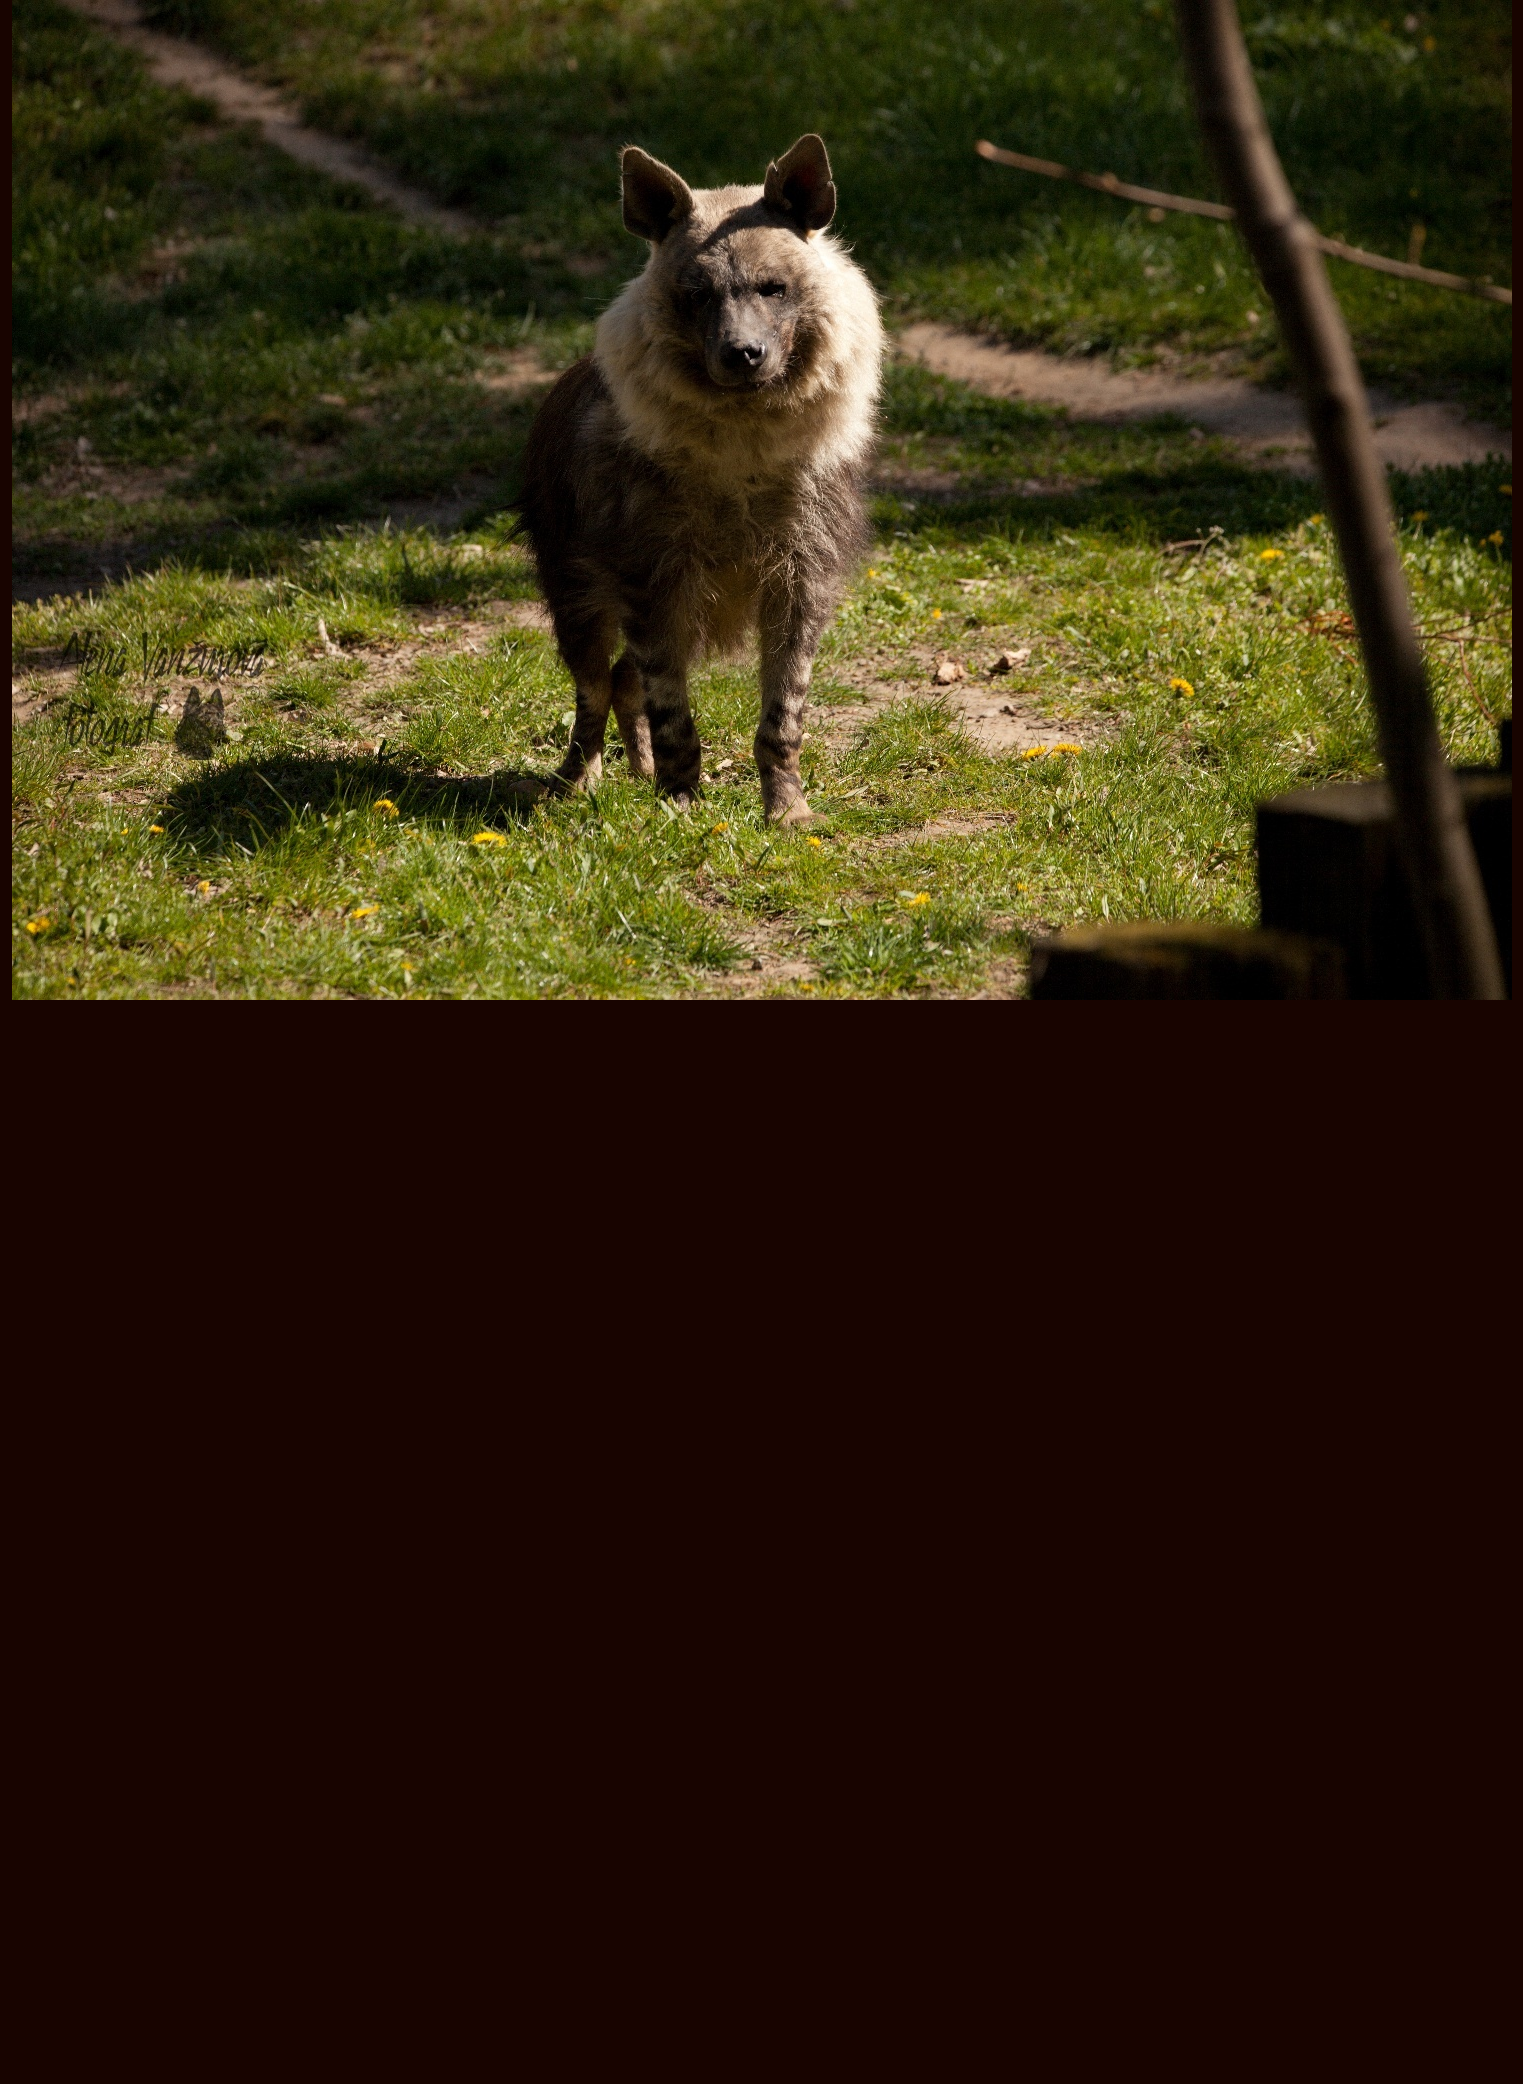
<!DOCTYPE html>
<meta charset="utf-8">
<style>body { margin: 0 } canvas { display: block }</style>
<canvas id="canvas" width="1523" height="2084"></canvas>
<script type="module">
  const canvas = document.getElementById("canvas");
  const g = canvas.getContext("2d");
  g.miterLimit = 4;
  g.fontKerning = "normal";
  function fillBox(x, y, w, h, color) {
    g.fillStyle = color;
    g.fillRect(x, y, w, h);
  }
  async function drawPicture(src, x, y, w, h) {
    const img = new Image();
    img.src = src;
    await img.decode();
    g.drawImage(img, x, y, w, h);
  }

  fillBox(0, 0, 1523, 2084, "#180400");
  await drawPicture("pic1.png", 12, 0, 1500, 1000);
</script>
